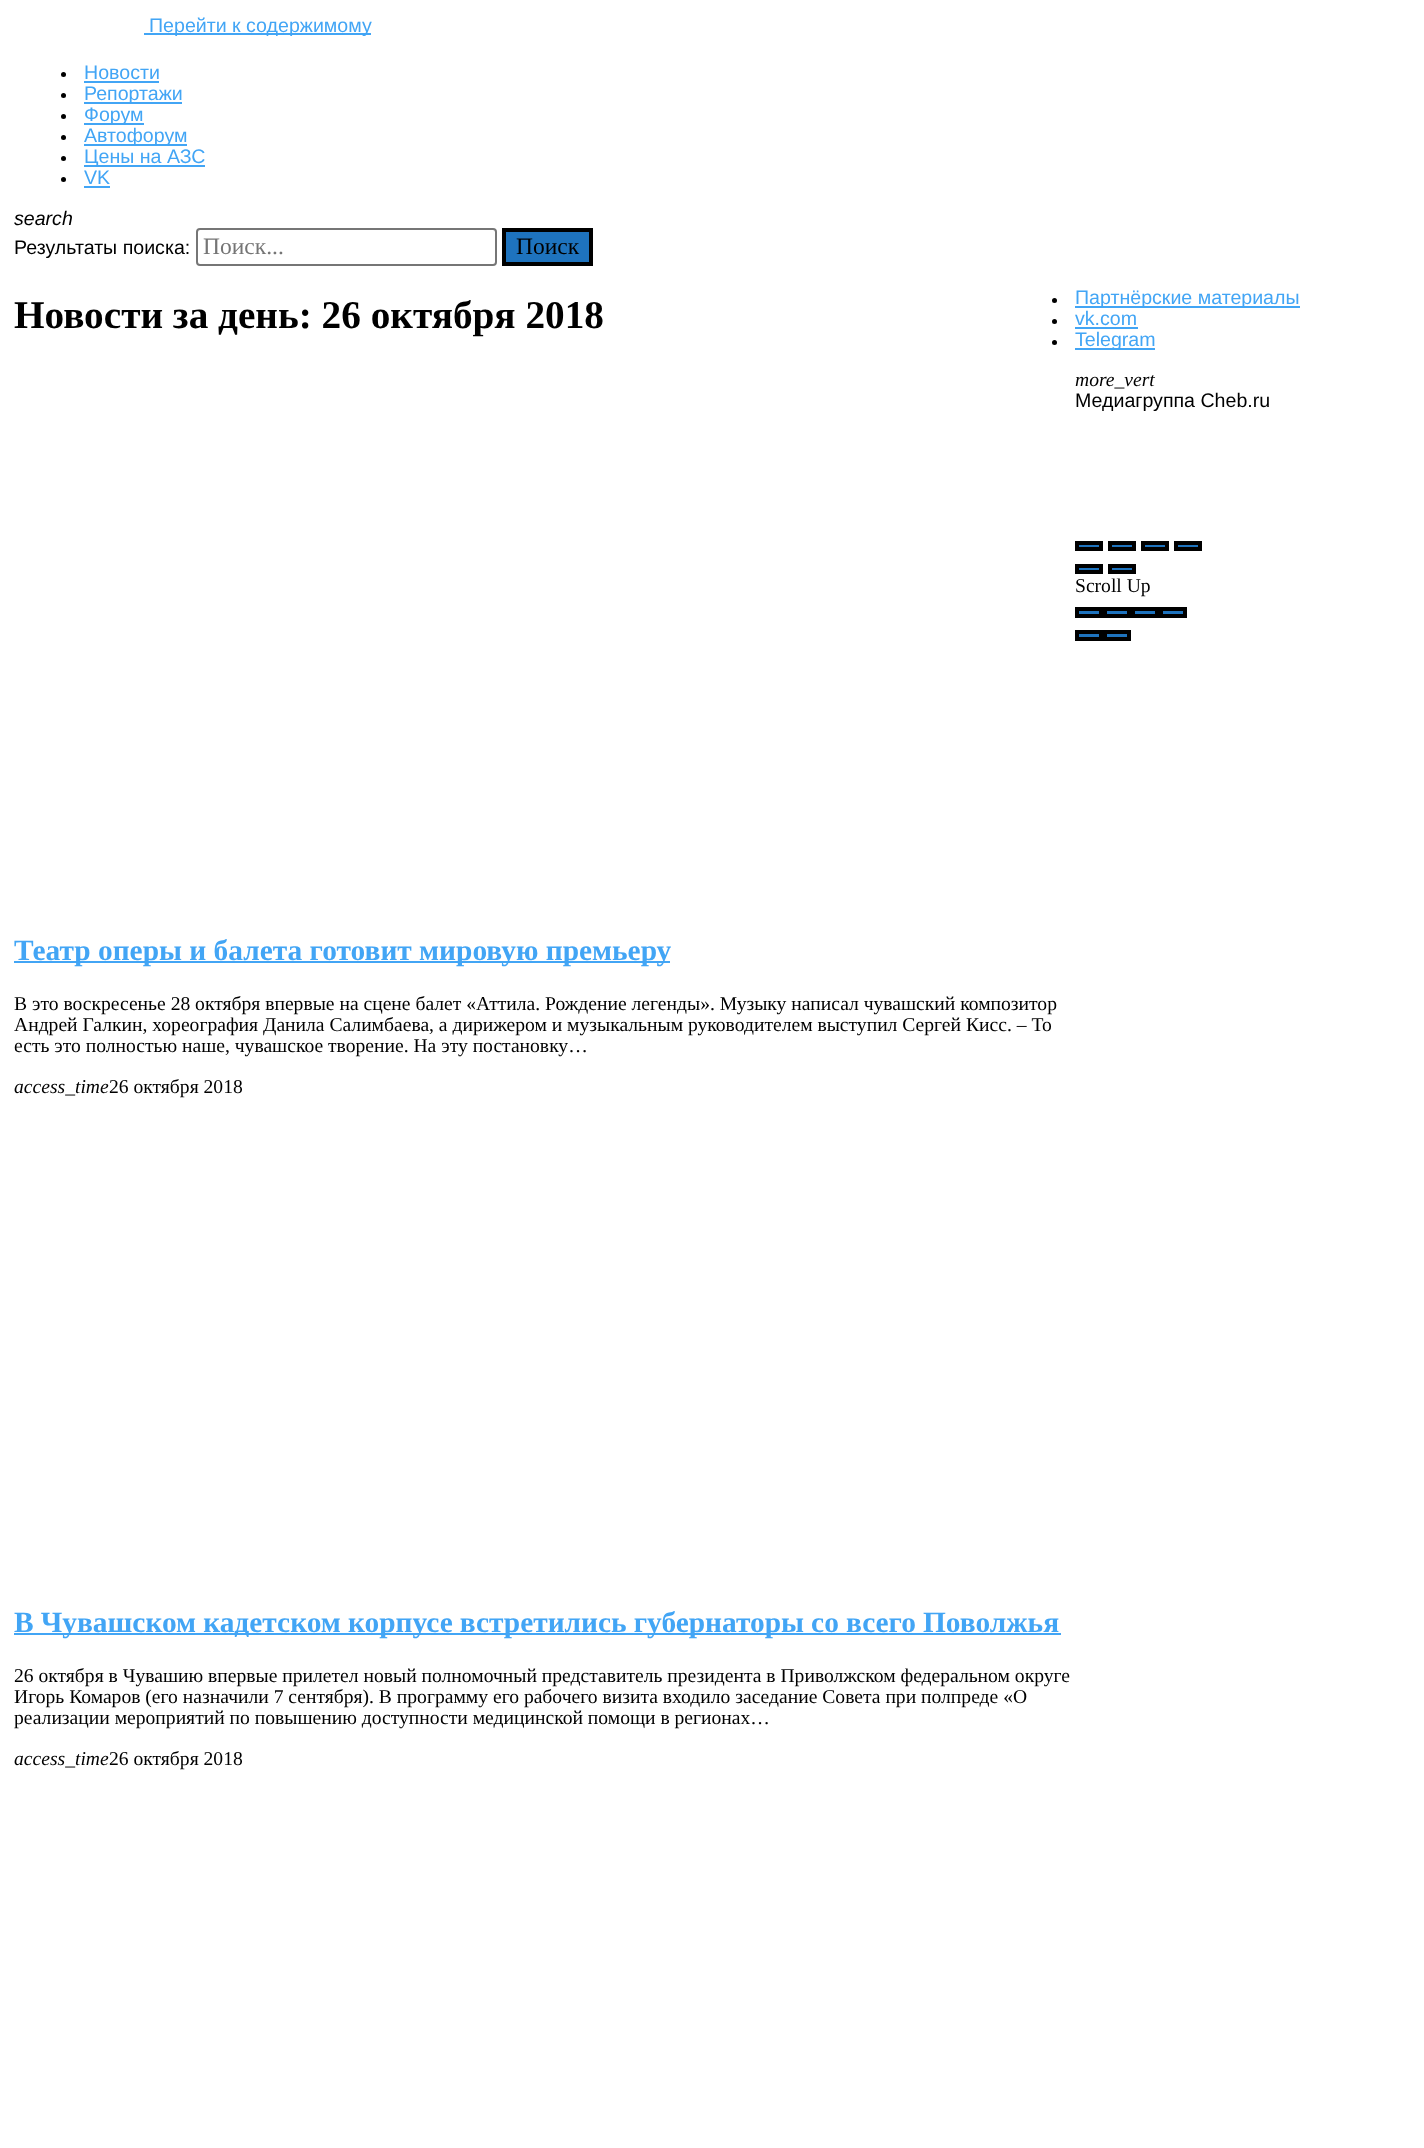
<!DOCTYPE html>
<meta charset="utf-8">
<style>body { margin: 0 } canvas { display: block }</style>
<canvas id="canvas" width="1424" height="2148"></canvas>
<script type="module">
  const canvas = document.getElementById("canvas");
  const g = canvas.getContext("2d");
  g.miterLimit = 4;
  g.fontKerning = "normal";
  function drawText(s, x, y, [font, color]) {
    g.font = font;
    g.fillStyle = color;
    g.fillText(s, x, y);
  }
  function fillBox(x, y, w, h, color) {
    g.fillStyle = color;
    g.fillRect(x, y, w, h);
  }

  const s1 = ["19.6px Liberation Sans", "#42A5F5"];
  const s2 = ["italic 19.6px Liberation Sans", "#000000"];
  const s3 = ["19.6px Liberation Sans", "#000000"];
  const s4 = ["23.5px Liberation Serif", "#757575"];
  const s5 = ["23.5px Liberation Serif", "#000000"];
  const s6 = ["bold 39.25px Liberation Serif", "#000000"];
  const s7 = ["bold 29.4px Liberation Serif", "#42A5F5"];
  const s8 = ["19.6px Liberation Serif", "#000000"];
  const s9 = ["italic 19.6px Liberation Serif", "#000000"];

  fillBox(0, 0, 1424, 2148, "#FFFFFF");
  fillBox(144, 33, 227, 2, "#42A5F5");
  drawText("Перейти к содержимому", 149, 32, s1);
  g.fillStyle = "#000000";
  g.beginPath();
  g.arc(63.5, 74.5, 2.5, 0, Math.PI * 2);
  g.fill();
  drawText("Новости", 84, 79, s1);
  fillBox(84, 81, 75, 2, "#42A5F5");
  g.fillStyle = "#000000";
  g.beginPath();
  g.arc(63.5, 95.5, 2.5, 0, Math.PI * 2);
  g.fill();
  fillBox(84, 102, 98, 2, "#42A5F5");
  drawText("Репортажи", 84, 100, s1);
  g.fillStyle = "#000000";
  g.beginPath();
  g.arc(63.5, 116.5, 2.5, 0, Math.PI * 2);
  g.fill();
  fillBox(84, 123, 60, 2, "#42A5F5");
  drawText("Форум", 84, 121, s1);
  g.fillStyle = "#000000";
  g.beginPath();
  g.arc(63.5, 137.5, 2.5, 0, Math.PI * 2);
  g.fill();
  fillBox(84, 144, 103, 2, "#42A5F5");
  drawText("Автофорум", 84, 142, s1);
  g.fillStyle = "#000000";
  g.beginPath();
  g.arc(63.5, 158.5, 2.5, 0, Math.PI * 2);
  g.fill();
  fillBox(84, 165, 121, 2, "#42A5F5");
  drawText("Цены на АЗС", 84, 163, s1);
  g.fillStyle = "#000000";
  g.beginPath();
  g.arc(63.5, 179.5, 2.5, 0, Math.PI * 2);
  g.fill();
  drawText("VK", 84, 184, s1);
  fillBox(84, 186, 26, 2, "#42A5F5");
  drawText("search", 14, 225, s2);
  drawText("Результаты поиска:", 14, 254, s3);
  g.beginPath();
  g.roundRect(197, 229, 299, 36, 3);
  g.strokeStyle = "#767676";
  g.lineWidth = 2;
  g.stroke();
  drawText("Поиск...", 203, 254, s4);
  g.fillStyle = "#1E73BE";
  g.beginPath();
  g.rect(504, 230, 87, 34);
  g.fill();
  g.strokeStyle = "#000000";
  g.lineWidth = 4;
  g.stroke();
  drawText("Поиск", 516, 254, s5);
  drawText("Новости за день: 26 октября 2018", 14, 328, s6);
  fillBox(14, 961, 656, 2, "#42A5F5");
  drawText("Театр оперы и балета готовит мировую премьеру", 14, 960, s7);
  drawText("В это воскресенье 28 октября впервые на сцене балет «Аттила. Рождение легенды». Музыку написал чувашский композитор", 14, 1010, s8);
  drawText("Андрей Галкин, хореография Данила Салимбаева, а дирижером и музыкальным руководителем выступил Сергей Кисс. – То", 14, 1031, s8);
  drawText("есть это полностью наше, чувашское творение. На эту постановку…", 14, 1052, s8);
  drawText("access_time", 14, 1093, s9);
  drawText("26 октября 2018", 109, 1093, s8);
  fillBox(14, 1633, 1047, 2, "#42A5F5");
  g.wordSpacing = "-0.25px";
  drawText("В Чувашском кадетском корпусе встретились губернаторы со всего Поволжья", 14, 1632, s7);
  g.wordSpacing = "0px";
  drawText("26 октября в Чувашию впервые прилетел новый полномочный представитель президента в Приволжском федеральном округе", 14, 1682, s8);
  drawText("Игорь Комаров (его назначили 7 сентября). В программу его рабочего визита входило заседание Совета при полпреде «О", 14, 1703, s8);
  drawText("реализации мероприятий по повышению доступности медицинской помощи в регионах…", 14, 1724, s8);
  drawText("access_time", 14, 1765, s9);
  drawText("26 октября 2018", 109, 1765, s8);
  g.beginPath();
  g.arc(1054.5, 300.5, 2.5, 0, Math.PI * 2);
  g.fill();
  fillBox(1075, 306, 225, 2, "#42A5F5");
  drawText("Партнёрские материалы", 1075, 304, s1);
  g.fillStyle = "#000000";
  g.beginPath();
  g.arc(1054.5, 321.5, 2.5, 0, Math.PI * 2);
  g.fill();
  drawText("vk.com", 1075, 325, s1);
  fillBox(1075, 327, 63, 2, "#42A5F5");
  g.fillStyle = "#000000";
  g.beginPath();
  g.arc(1054.5, 342.5, 2.5, 0, Math.PI * 2);
  g.fill();
  fillBox(1075, 348, 80, 2, "#42A5F5");
  drawText("Telegram", 1075, 346, s1);
  drawText("more_vert", 1075, 386, s9);
  drawText("Медиагруппа Cheb.ru", 1075, 407, s3);
  g.fillStyle = "#1E73BE";
  g.beginPath();
  g.rect(1077, 543, 24, 6);
  g.fill();
  g.stroke();
  g.beginPath();
  g.rect(1110, 543, 24, 6);
  g.fill();
  g.stroke();
  g.beginPath();
  g.rect(1143, 543, 24, 6);
  g.fill();
  g.stroke();
  g.beginPath();
  g.rect(1176, 543, 24, 6);
  g.fill();
  g.stroke();
  g.beginPath();
  g.rect(1077, 566, 24, 6);
  g.fill();
  g.stroke();
  g.beginPath();
  g.rect(1110, 566, 24, 6);
  g.fill();
  g.stroke();
  drawText("Scroll Up", 1075, 592, s8);
  g.fillStyle = "#1E73BE";
  g.beginPath();
  g.rect(1077, 609, 24, 7);
  g.fill();
  g.stroke();
  g.beginPath();
  g.rect(1105, 609, 24, 7);
  g.fill();
  g.stroke();
  g.beginPath();
  g.rect(1133, 609, 24, 7);
  g.fill();
  g.stroke();
  g.beginPath();
  g.rect(1161, 609, 24, 7);
  g.fill();
  g.stroke();
  g.beginPath();
  g.rect(1077, 632, 24, 7);
  g.fill();
  g.stroke();
  g.beginPath();
  g.rect(1105, 632, 24, 7);
  g.fill();
  g.stroke();
</script>
